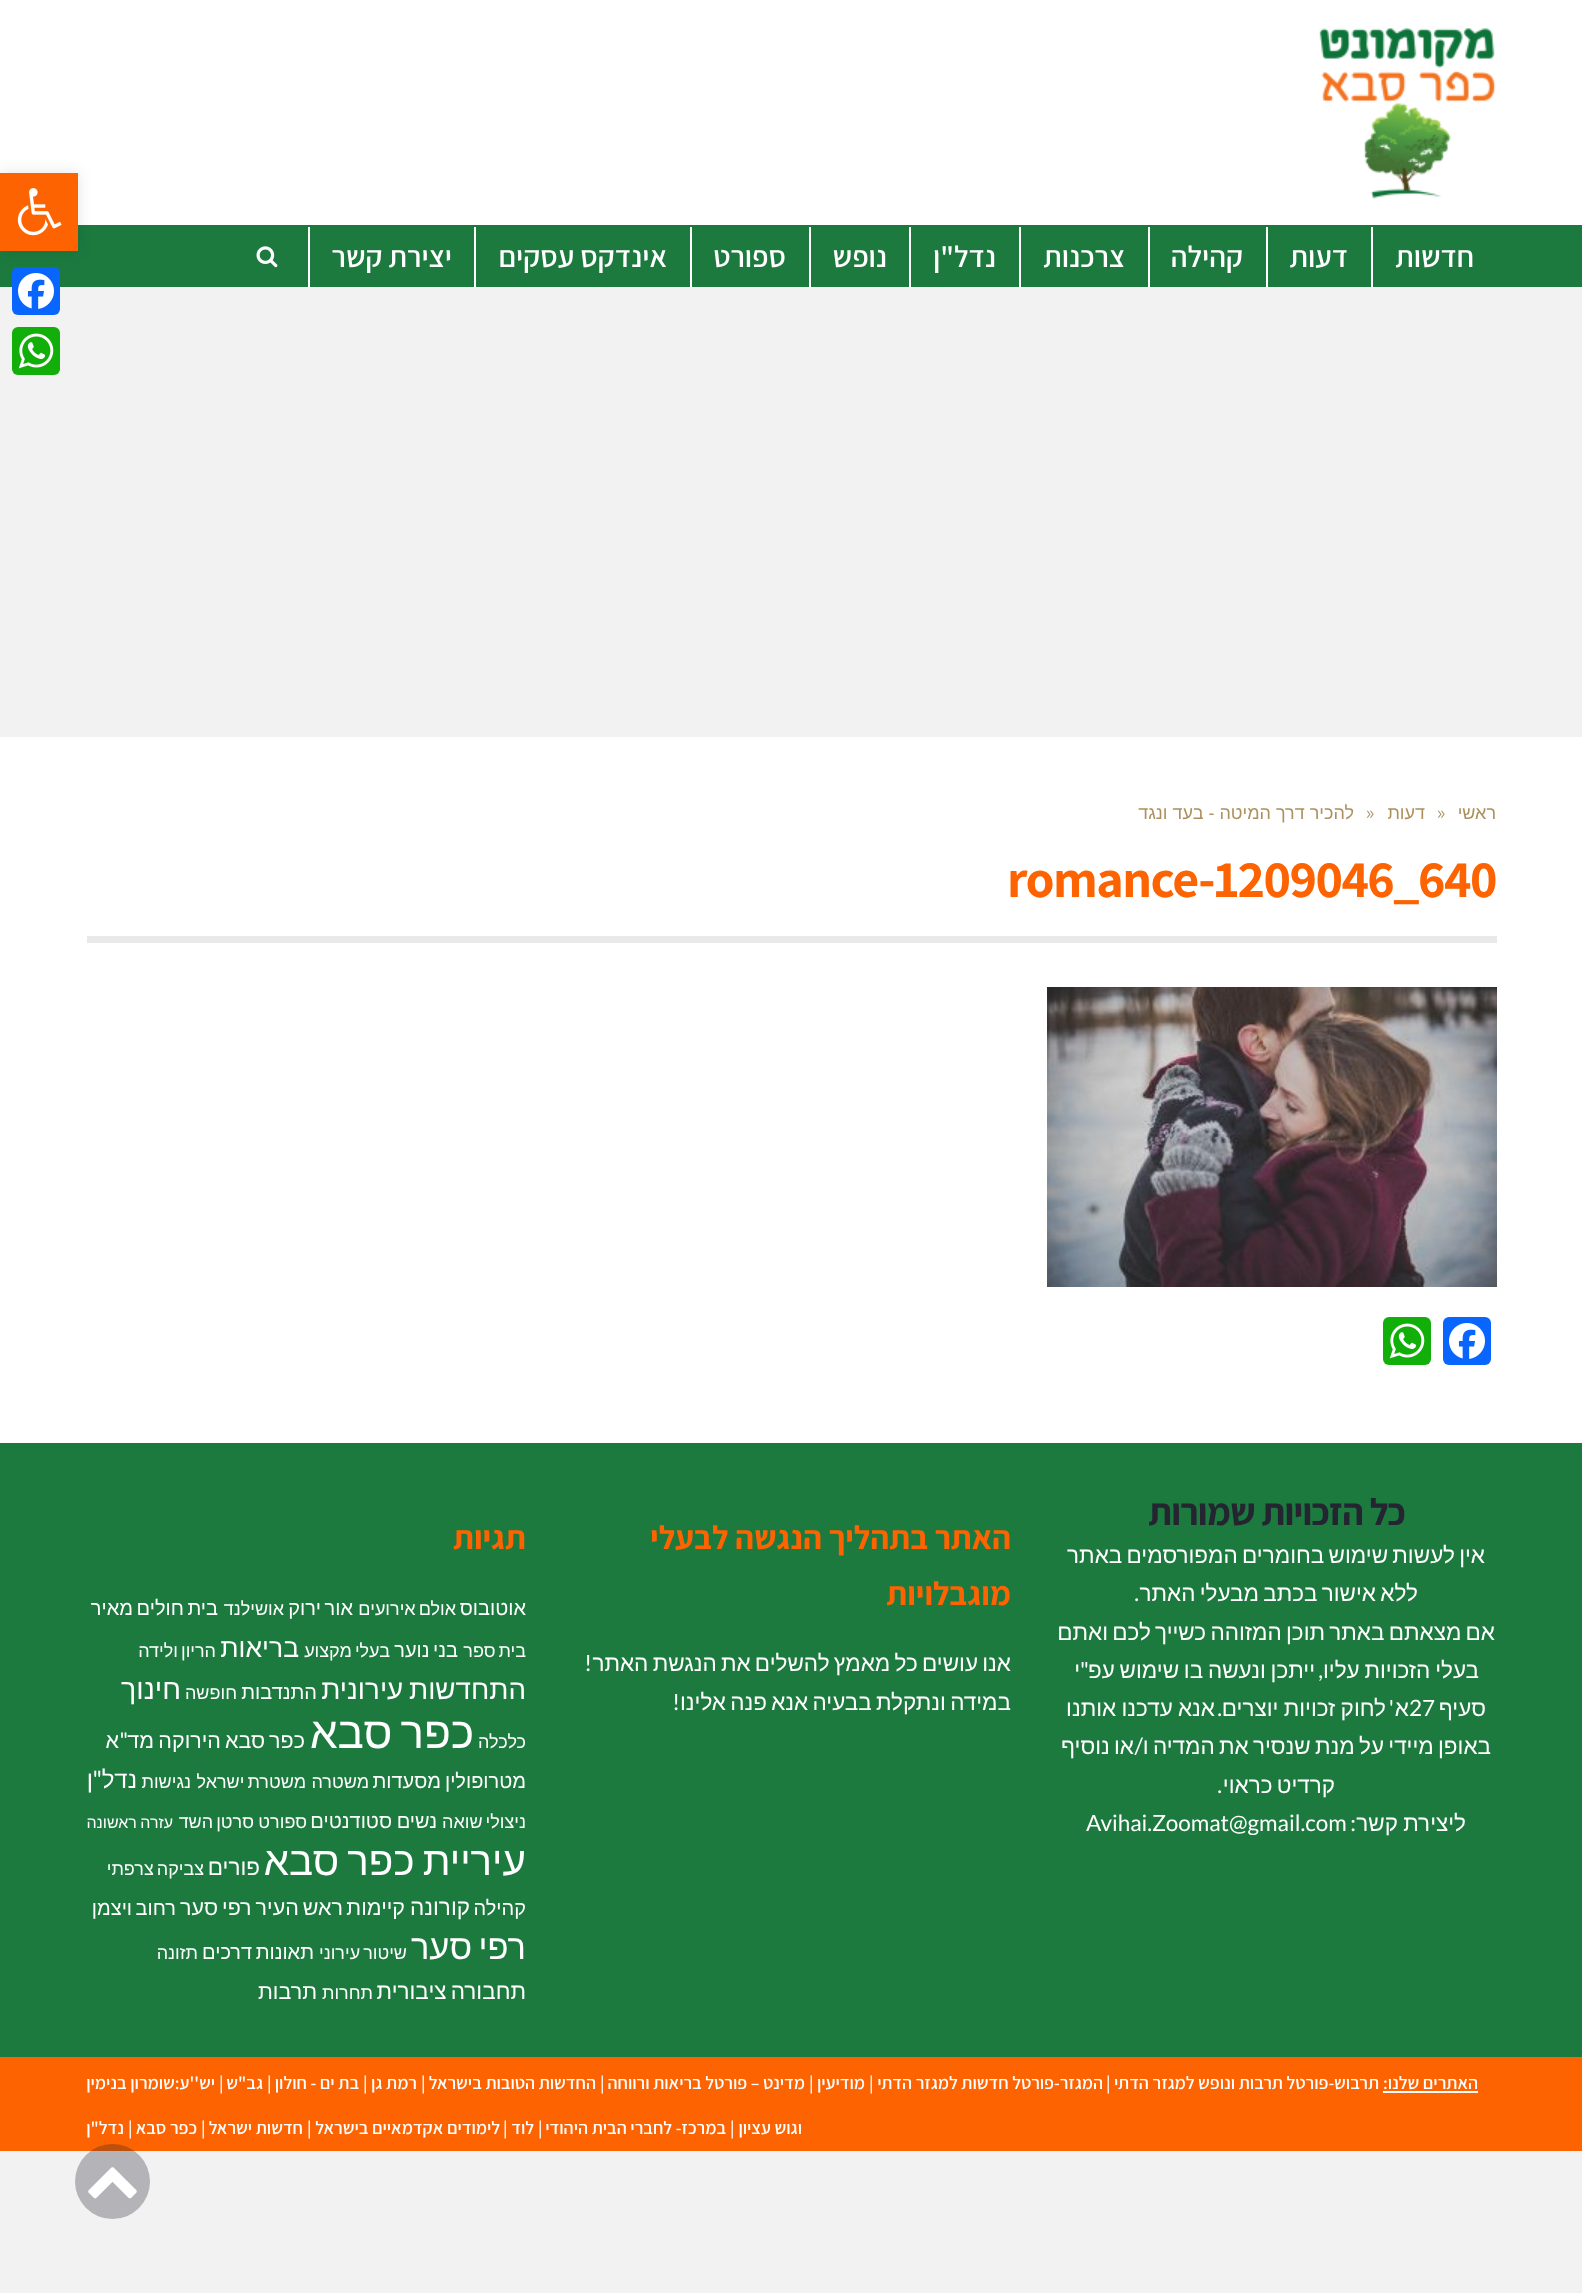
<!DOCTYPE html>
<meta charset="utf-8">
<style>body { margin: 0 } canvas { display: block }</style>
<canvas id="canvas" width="1582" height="2293"></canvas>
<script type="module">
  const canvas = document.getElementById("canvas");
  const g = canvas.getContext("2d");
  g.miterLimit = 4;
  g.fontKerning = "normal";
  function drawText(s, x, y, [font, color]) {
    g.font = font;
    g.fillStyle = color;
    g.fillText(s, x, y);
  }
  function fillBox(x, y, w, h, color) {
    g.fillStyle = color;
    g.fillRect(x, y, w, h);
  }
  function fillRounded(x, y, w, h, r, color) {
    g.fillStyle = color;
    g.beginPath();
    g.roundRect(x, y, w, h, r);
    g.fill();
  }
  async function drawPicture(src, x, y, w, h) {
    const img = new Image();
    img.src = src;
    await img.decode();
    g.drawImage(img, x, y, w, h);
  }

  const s1 = ["600 30px Assistant", "#FFFFFF"];
  const s2 = ["18px Liberation Sans", "#AC915D"];
  const s3 = ["18px Montserrat", "#AC915D"];
  const s4 = ["bold 52.5px Assistant", "#FD6301"];
  const s5 = ["bold 37.5px Assistant", "#252531"];
  const s6 = ["22.5px Liberation Sans", "#FFFFFF"];
  const s7 = ["22.5px Lato", "#FFFFFF"];
  const s8 = ["bold 33px Assistant", "#FD6301"];
  const s9 = ["20px Liberation Sans", "#FFFFFF"];
  const s10 = ["18px Liberation Sans", "#FFFFFF"];
  const s11 = ["26.5px Liberation Sans", "#FFFFFF"];
  const s12 = ["27.75px Liberation Sans", "#FFFFFF"];
  const s13 = ["28.5px Liberation Sans", "#FFFFFF"];
  const s14 = ["44px Liberation Sans", "#FFFFFF"];
  const s15 = ["21.5px Liberation Sans", "#FFFFFF"];
  const s16 = ["21.5px Lato", "#FFFFFF"];
  const s17 = ["24px Liberation Sans", "#FFFFFF"];
  const s18 = ["24px Lato", "#FFFFFF"];
  const s19 = ["16px Liberation Sans", "#FFFFFF"];
  const s20 = ["40.25px Liberation Sans", "#FFFFFF"];
  const s21 = ["34.5px Liberation Sans", "#FFFFFF"];
  const s22 = ["600 18px Assistant", "#FFFFFF"];

  fillBox(0, 0, 1582, 2293, "#F2F2F2");
  fillBox(0, 0, 1582, 225, "#FFFFFF");
  fillBox(0, 225, 1582, 62, "#1C7A3F");
  g.fillStyle = "rgba(0, 0, 0, 0.1)";
  g.filter = "blur(7.5px)";
  g.beginPath();
  g.rect(0, 173, 78, 78);
  g.fill();
  g.filter = "none";
  fillBox(0, 173, 78, 78, "#FD6301");
  await drawPicture("pic1.png", 17, 188, 45, 48);
  await drawPicture("pic2.png", 1319, 28, 177, 171);
  fillBox(1371, 227, 2, 60, "#FFFFFF");
  g.direction = "rtl";
  drawText("חדשות", 1474, 267, s1);
  fillBox(1266, 227, 2, 60, "#FFFFFF");
  drawText("דעות", 1348, 267, s1);
  fillBox(1148, 227, 2, 60, "#FFFFFF");
  drawText("קהילה", 1243, 267, s1);
  fillBox(1019, 227, 2, 60, "#FFFFFF");
  drawText("צרכנות", 1125, 267, s1);
  fillBox(909, 227, 2, 60, "#FFFFFF");
  drawText("נדל\"ן", 996, 267, s1);
  fillBox(809, 227, 2, 60, "#FFFFFF");
  drawText("נופש", 887, 267, s1);
  fillBox(690, 227, 2, 60, "#FFFFFF");
  drawText("ספורט", 786, 267, s1);
  fillBox(474, 227, 2, 60, "#FFFFFF");
  drawText("אינדקס עסקים", 667, 267, s1);
  fillBox(308, 227, 2, 60, "#FFFFFF");
  drawText("יצירת קשר", 452, 267, s1);
  await drawPicture("pic3.png", 256, 246, 22, 22);
  fillBox(0, 737, 1582, 706, "#FFFFFF");
  drawText("ראשי", 1496, 819, s2);
  g.direction = "ltr";
  drawText("»", 1437, 819, s3);
  g.direction = "rtl";
  drawText("דעות", 1425, 819, s2);
  g.direction = "ltr";
  drawText("»", 1366, 819, s3);
  g.direction = "rtl";
  drawText("להכיר דרך המיטה - בעד ונגד", 1354, 819, s2);
  g.letterSpacing = "-1.5px";
  g.direction = "ltr";
  drawText("romance-1209046_640", 1007, 897, s4);
  fillBox(87, 936, 1410, 7, "#E9E9E9");
  await drawPicture("pic4.png", 1047, 987, 450, 300);
  fillRounded(1443, 1317, 48, 48, 6, "#0866FF");
  await drawPicture("pic5.png", 1449, 1323, 36, 36);
  fillRounded(1383, 1317, 48, 48, 6, "#12AF0A");
  await drawPicture("pic6.png", 1389, 1323, 36, 36);
  fillBox(0, 1443, 1582, 614, "#1C7A3F");
  g.letterSpacing = "-0.75px";
  g.direction = "rtl";
  drawText("כל הזכויות שמורות", 1405, 1525, s5);
  g.letterSpacing = "0px";
  g.wordSpacing = "-2px";
  drawText("אין לעשות שימוש בחומרים המפורסמים באתר", 1485, 1563, s6);
  drawText("ללא אישור בכתב מבעלי האתר", 1418, 1601, s6);
  g.wordSpacing = "0px";
  drawText(".", 1139, 1601, s7);
  g.save();
  g.beginPath();
  g.rect(1056, 1488, 441, 384);
  g.clip();
  g.wordSpacing = "-2px";
  drawText("אם מצאתם באתר תוכן המזוהה כשייך לכם ואתם", 1495, 1640, s6);
  g.restore();
  g.wordSpacing = "-1.5px";
  drawText("בעלי הזכויות עליו", 1479, 1678, s6);
  drawText("ייתכן ונעשה בו שימוש עפ", 1315, 1678, s6);
  g.wordSpacing = "0px";
  drawText(",", 1323, 1678, s7);
  drawText("\"", 1089, 1678, s7);
  drawText("י", 1080, 1678, s6);
  drawText("סעיף", 1486, 1716, s6);
  g.direction = "ltr";
  drawText("27", 1409, 1716, s7);
  g.direction = "rtl";
  drawText("א", 1409, 1716, s6);
  drawText("'", 1394, 1716, s7);
  g.wordSpacing = "-1px";
  drawText("לחוק זכויות יוצרים", 1386, 1716, s6);
  g.wordSpacing = "0px";
  drawText(".", 1222, 1716, s7);
  g.wordSpacing = "-1px";
  drawText("אנא עדכנו אותנו", 1215, 1716, s6);
  g.save();
  g.beginPath();
  g.rect(1056, 1488, 441, 384);
  g.clip();
  g.wordSpacing = "-2px";
  drawText("באופן מיידי על מנת שנסיר את המדיה ו", 1491, 1754, s6);
  g.restore();
  g.wordSpacing = "-2px";
  drawText("או נוסיף", 1134, 1754, s6);
  g.wordSpacing = "0px";
  drawText("/", 1143, 1754, s7);
  g.wordSpacing = "-2px";
  drawText("קרדיט כראוי", 1335, 1793, s6);
  g.wordSpacing = "0px";
  drawText(".", 1222, 1793, s7);
  g.wordSpacing = "-1px";
  drawText("ליצירת קשר", 1466, 1831, s6);
  g.wordSpacing = "0px";
  drawText(":", 1356, 1831, s7);
  g.direction = "ltr";
  drawText("Avihai.Zoomat@gmail.com", 1086, 1831, s7);
  g.direction = "rtl";
  drawText("האתר בתהליך הנגשה לבעלי", 1011, 1549, s8);
  drawText("מוגבלויות", 1011, 1605, s8);
  g.wordSpacing = "-2px";
  drawText("אנו עושים כל מאמץ להשלים את הנגשת האתר", 1011, 1671, s6);
  g.wordSpacing = "0px";
  drawText("!", 592, 1671, s7);
  g.wordSpacing = "-2px";
  drawText("במידה ונתקלת בבעיה אנא פנה אלינו", 1011, 1710, s6);
  g.wordSpacing = "0px";
  drawText("!", 680, 1710, s7);
  drawText("תגיות", 526, 1549, s8);
  drawText("אוטובוס", 526, 1615, s9);
  g.wordSpacing = "-2px";
  drawText("אולם אירועים", 456, 1615, s10);
  drawText("אור ירוק", 353, 1615, s9);
  g.wordSpacing = "0px";
  drawText("אושילנד", 284, 1615, s10);
  g.wordSpacing = "-2px";
  drawText("בית חולים מאיר", 218, 1615, s9);
  drawText("בית ספר", 526, 1657, s10);
  drawText("בני נוער", 458, 1657, s9);
  drawText("בעלי מקצוע", 390, 1657, s10);
  g.wordSpacing = "0px";
  drawText("בריאות", 299, 1657, s11);
  g.wordSpacing = "-2px";
  drawText("הריון ולידה", 216, 1657, s10);
  drawText("התחדשות עירונית", 526, 1699, s12);
  g.wordSpacing = "0px";
  drawText("התנדבות", 317, 1699, s9);
  drawText("חופשה", 237, 1699, s10);
  drawText("חינוך", 181, 1699, s13);
  drawText("כלכלה", 526, 1748, s10);
  g.wordSpacing = "-4px";
  drawText("כפר סבא", 474, 1748, s14);
  g.wordSpacing = "-2px";
  drawText("כפר סבא הירוקה", 305, 1748, s15);
  g.wordSpacing = "0px";
  drawText("מד", 154, 1748, s15);
  drawText("\"", 128, 1748, s16);
  drawText("א", 119, 1748, s15);
  drawText("מטרופולין", 526, 1788, s9);
  drawText("מסעדות", 441, 1788, s9);
  drawText("משטרה", 369, 1788, s10);
  g.wordSpacing = "-2px";
  drawText("משטרת ישראל", 306, 1788, s10);
  g.wordSpacing = "0px";
  drawText("נגישות", 191, 1788, s10);
  drawText("נדל", 137, 1788, s17);
  drawText("\"", 102, 1788, s18);
  drawText("ן", 93, 1788, s17);
  g.wordSpacing = "-2px";
  drawText("ניצולי שואה", 526, 1828, s10);
  g.wordSpacing = "0px";
  drawText("נשים", 437, 1828, s9);
  drawText("סטודנטים", 392, 1828, s9);
  drawText("ספורט", 307, 1828, s10);
  g.wordSpacing = "-2px";
  drawText("סרטן השד", 254, 1828, s10);
  g.wordSpacing = "-1px";
  drawText("עזרה ראשונה", 173, 1828, s19);
  g.wordSpacing = "-3px";
  drawText("עיריית כפר סבא", 526, 1875, s20);
  g.wordSpacing = "0px";
  drawText("פורים", 260, 1875, s6);
  g.wordSpacing = "-2px";
  drawText("צביקה צרפתי", 204, 1875, s10);
  g.wordSpacing = "0px";
  drawText("קהילה", 526, 1915, s9);
  drawText("קורונה", 470, 1915, s6);
  drawText("קיימות", 405, 1915, s15);
  g.wordSpacing = "-2px";
  drawText("ראש העיר רפי סער", 343, 1915, s15);
  drawText("רחוב ויצמן", 176, 1915, s9);
  g.wordSpacing = "-3px";
  drawText("רפי סער", 526, 1959, s21);
  g.wordSpacing = "-2px";
  drawText("שיטור עירוני", 407, 1959, s10);
  drawText("תאונות דרכים", 314, 1959, s9);
  g.wordSpacing = "0px";
  drawText("תזונה", 198, 1959, s10);
  g.wordSpacing = "-2px";
  drawText("תחבורה ציבורית", 526, 1999, s6);
  g.wordSpacing = "0px";
  drawText("תחרות", 373, 1999, s10);
  drawText("תרבות", 317, 1999, s15);
  fillBox(0, 2057, 1582, 94, "#FD6301");
  drawText("האתרים שלנו:", 1478, 2089, s22);
  fillBox(1383, 2091, 95, 2, "#FFFFFF");
  drawText("תרבוש-פורטל תרבות ונופש למגזר הדתי", 1379, 2089, s22);
  g.direction = "ltr";
  drawText("|", 1106, 2089, s22);
  g.direction = "rtl";
  drawText("המגזר-פורטל חדשות למגזר הדתי", 1103, 2089, s22);
  g.direction = "ltr";
  drawText("|", 869, 2089, s22);
  g.direction = "rtl";
  drawText("מודיעין", 865, 2089, s22);
  g.direction = "ltr";
  drawText("|", 809, 2089, s22);
  g.direction = "rtl";
  drawText("מדינט – פורטל בריאות ורווחה", 805, 2089, s22);
  g.direction = "ltr";
  drawText("|", 600, 2089, s22);
  g.direction = "rtl";
  drawText("החדשות הטובות בישראל", 596, 2089, s22);
  g.direction = "ltr";
  drawText("|", 421, 2089, s22);
  g.direction = "rtl";
  drawText("רמת גן", 417, 2089, s22);
  g.direction = "ltr";
  drawText("|", 363, 2089, s22);
  g.direction = "rtl";
  drawText("בת ים - חולון", 359, 2089, s22);
  g.direction = "ltr";
  drawText("|", 267, 2089, s22);
  g.direction = "rtl";
  drawText("גב\"ש", 263, 2089, s22);
  g.direction = "ltr";
  drawText("|", 219, 2089, s22);
  g.direction = "rtl";
  drawText("יש''ע:שומרון בנימין", 215, 2089, s22);
  drawText("וגוש עציון", 802, 2134, s22);
  g.direction = "ltr";
  drawText("|", 730, 2134, s22);
  g.direction = "rtl";
  drawText("במרכז- לחברי הבית היהודי", 726, 2134, s22);
  g.direction = "ltr";
  drawText("|", 538, 2134, s22);
  g.direction = "rtl";
  drawText("לוד", 534, 2134, s22);
  g.direction = "ltr";
  drawText("|", 503, 2134, s22);
  g.direction = "rtl";
  drawText("לימודים אקדמאיים בישראל", 500, 2134, s22);
  g.direction = "ltr";
  drawText("|", 307, 2134, s22);
  g.direction = "rtl";
  drawText("חדשות ישראל", 303, 2134, s22);
  g.direction = "ltr";
  drawText("|", 201, 2134, s22);
  g.direction = "rtl";
  drawText("כפר סבא", 197, 2134, s22);
  g.direction = "ltr";
  drawText("|", 128, 2134, s22);
  g.direction = "rtl";
  drawText("נדל\"ן", 124, 2134, s22);
  fillRounded(12, 267, 48, 48, 6, "#0866FF");
  await drawPicture("pic5.png", 18, 273, 36, 36);
  fillRounded(12, 327, 48, 48, 6, "#12AF0A");
  await drawPicture("pic6.png", 18, 333, 36, 36);
  g.fillStyle = "rgba(37, 37, 49, 0.3)";
  g.beginPath();
  g.arc(112.5, 2181.5, 37.5, 0, Math.PI * 2);
  g.fill();
  await drawPicture("pic7.png", 88, 2167, 49, 32);
</script>
